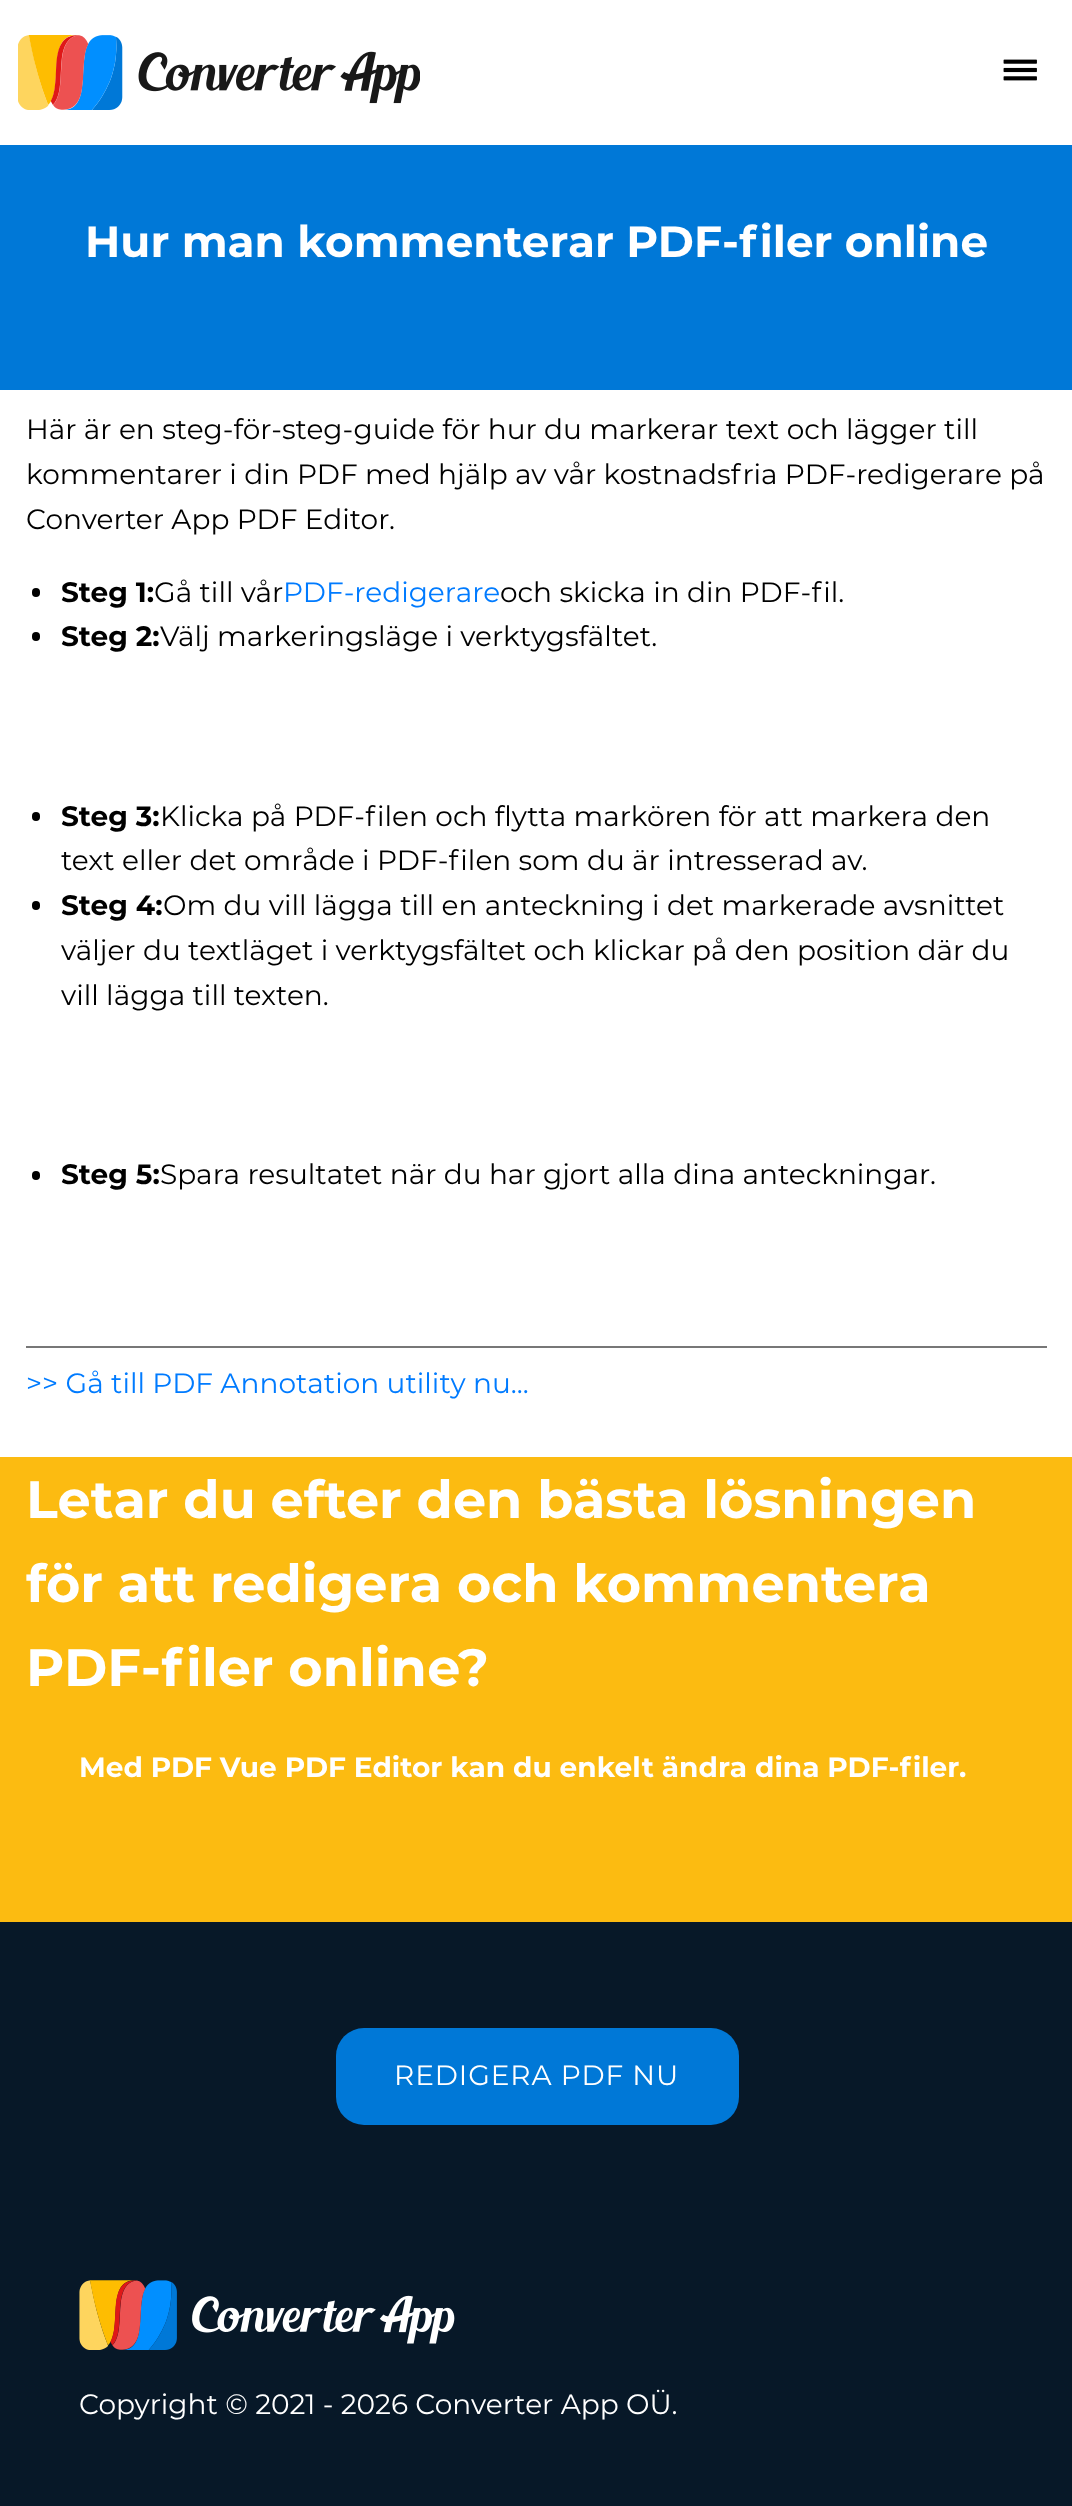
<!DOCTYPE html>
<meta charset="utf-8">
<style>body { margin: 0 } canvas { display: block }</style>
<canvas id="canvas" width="1072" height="2506"></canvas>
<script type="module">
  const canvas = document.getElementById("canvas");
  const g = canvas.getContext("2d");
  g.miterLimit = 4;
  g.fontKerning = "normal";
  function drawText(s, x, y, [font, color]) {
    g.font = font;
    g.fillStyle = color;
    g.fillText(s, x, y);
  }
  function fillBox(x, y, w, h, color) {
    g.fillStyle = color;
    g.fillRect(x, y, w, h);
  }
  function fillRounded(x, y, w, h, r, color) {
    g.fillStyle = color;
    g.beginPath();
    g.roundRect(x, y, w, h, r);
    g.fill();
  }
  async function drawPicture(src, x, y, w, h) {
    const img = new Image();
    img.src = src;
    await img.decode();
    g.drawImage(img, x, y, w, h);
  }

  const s1 = ["bold 43.75px Montserrat", "#FFFFFF"];
  const s2 = ["28px Montserrat", "#000000"];
  const s3 = ["bold 28px Montserrat", "#000000"];
  const s4 = ["28px Montserrat", "#007BFF"];
  const s5 = ["bold 52.5px Montserrat", "#FFFFFF"];
  const s6 = ["bold 28px Montserrat", "#FFFFFF"];
  const s7 = ["28px Montserrat", "#FFFFFF"];

  fillBox(0, 0, 1072, 2506, "#FFFFFF");
  await drawPicture("pic1.png", 18, 35, 402, 75);
  await drawPicture("pic2.png", 1003, 59, 34, 22);
  fillBox(0, 145, 1072, 245, "#0078D7");
  drawText("Hur man kommenterar PDF-filer online", 85, 257, s1);
  drawText("Här är en steg-för-steg-guide för hur du markerar text och lägger till", 26, 439, s2);
  drawText("kommentarer i din PDF med hjälp av vår kostnadsfria PDF-redigerare på", 26, 484, s2);
  drawText("Converter App PDF Editor.", 26, 529, s2);
  fillRounded(32, 588, 8, 9, 4, "#000000");
  drawText("Steg 1:", 61, 602, s3);
  drawText("Gå till vår", 154, 602, s2);
  drawText("PDF-redigerare", 283, 602, s4);
  drawText("och skicka in din PDF-fil.", 500, 602, s2);
  fillRounded(32, 632, 8, 9, 4, "#000000");
  drawText("Steg 2:", 61, 646, s3);
  drawText("Välj markeringsläge i verktygsfältet.", 160, 646, s2);
  fillRounded(32, 812, 8, 9, 4, "#000000");
  drawText("Steg 3:", 61, 826, s3);
  drawText("Klicka på PDF-filen och flytta markören för att markera den", 160, 826, s2);
  drawText("text eller det område i PDF-filen som du är intresserad av.", 61, 870, s2);
  fillRounded(32, 901, 8, 9, 4, "#000000");
  drawText("Steg 4:", 61, 915, s3);
  drawText("Om du vill lägga till en anteckning i det markerade avsnittet", 163, 915, s2);
  drawText("väljer du textläget i verktygsfältet och klickar på den position där du", 61, 960, s2);
  drawText("vill lägga till texten.", 61, 1005, s2);
  fillRounded(32, 1171, 8, 9, 4, "#000000");
  drawText("Steg 5:", 61, 1184, s3);
  drawText("Spara resultatet när du har gjort alla dina anteckningar.", 160, 1184, s2);
  fillBox(26, 1346, 1021, 2, "#777777");
  drawText(">> Gå till PDF Annotation utility nu...", 26, 1393, s4);
  fillBox(0, 1457, 1072, 465, "#FCBB11");
  drawText("Letar du efter den bästa lösningen", 26, 1518, s5);
  drawText("för att redigera och kommentera", 26, 1602, s5);
  drawText("PDF-filer online?", 26, 1686, s5);
  drawText("Med PDF Vue PDF Editor kan du enkelt ändra dina PDF-filer.", 79, 1777, s6);
  fillBox(0, 1922, 1072, 584, "#071828");
  fillRounded(336, 2028, 403, 97, 28, "#0078D7");
  g.letterSpacing = "0.9px";
  drawText("REDIGERA PDF NU", 394, 2085, s7);
  await drawPicture("pic3.png", 79, 2280, 376, 70);
  g.letterSpacing = "0px";
  drawText("Copyright © 2021 - 2026 Converter App OÜ.", 79, 2414, s7);
</script>
